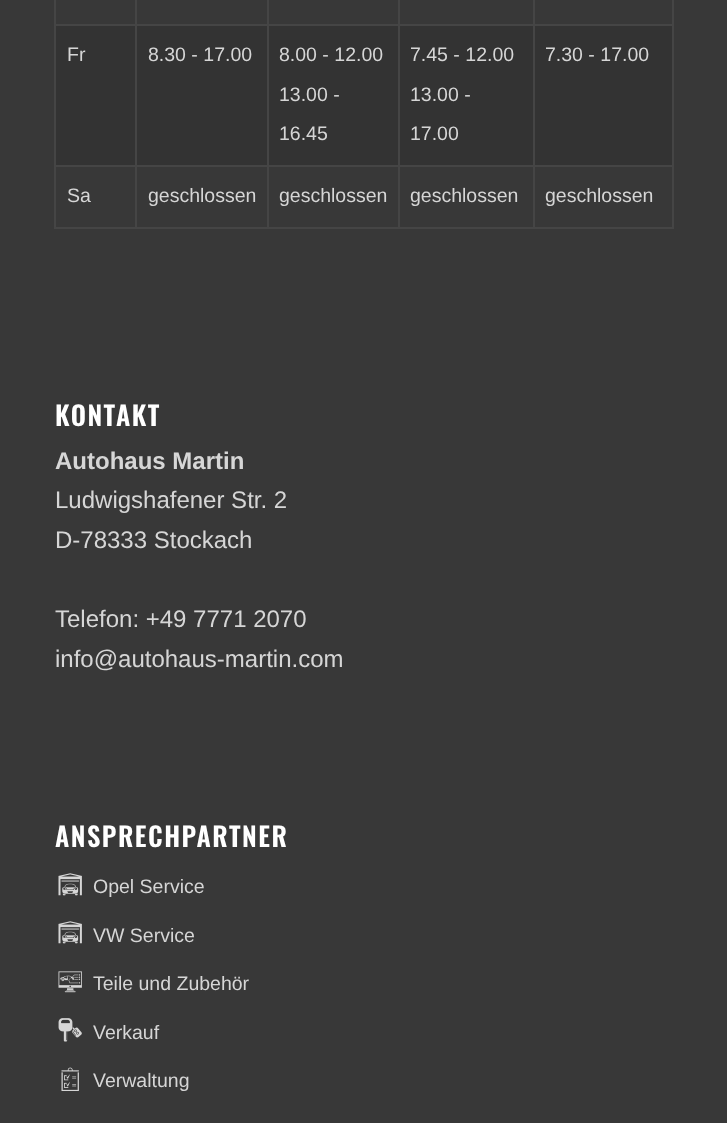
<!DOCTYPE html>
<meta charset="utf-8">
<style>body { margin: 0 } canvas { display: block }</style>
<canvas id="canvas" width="727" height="1123"></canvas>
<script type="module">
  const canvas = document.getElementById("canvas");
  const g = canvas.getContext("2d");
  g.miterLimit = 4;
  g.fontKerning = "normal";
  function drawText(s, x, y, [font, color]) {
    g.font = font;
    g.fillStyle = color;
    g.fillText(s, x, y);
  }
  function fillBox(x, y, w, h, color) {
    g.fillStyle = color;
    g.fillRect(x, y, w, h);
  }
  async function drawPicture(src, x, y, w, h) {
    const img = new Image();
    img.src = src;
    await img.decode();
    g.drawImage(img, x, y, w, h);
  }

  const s1 = ["19.5px Liberation Sans", "#D6D6D6"];
  const s2 = ["600 26.5px Oswald", "#FFFFFF"];
  const s3 = ["bold 24px Liberation Sans", "#D6D6D6"];
  const s4 = ["24px Liberation Sans", "#D6D6D6"];

  fillBox(0, 0, 727, 1123, "#383838");
  fillBox(56, 26, 616, 139, "#333333");
  fillBox(672, 0, 2, 228, "#454545");
  fillBox(533, 227, 141, 2, "#454545");
  fillBox(533, 165, 2, 63, "#454545");
  fillBox(533, 165, 141, 2, "#454545");
  fillBox(533, 24, 2, 143, "#454545");
  fillBox(533, 24, 141, 2, "#454545");
  fillBox(533, 0, 2, 26, "#454545");
  fillBox(398, 227, 136, 2, "#454545");
  fillBox(398, 165, 2, 63, "#454545");
  fillBox(398, 165, 136, 2, "#454545");
  fillBox(398, 24, 2, 143, "#454545");
  fillBox(398, 24, 136, 2, "#454545");
  fillBox(398, 0, 2, 26, "#454545");
  fillBox(267, 227, 132, 2, "#454545");
  fillBox(267, 165, 2, 63, "#454545");
  fillBox(267, 165, 132, 2, "#454545");
  fillBox(267, 24, 2, 143, "#454545");
  fillBox(267, 24, 132, 2, "#454545");
  fillBox(267, 0, 2, 26, "#454545");
  fillBox(135, 227, 134, 2, "#454545");
  fillBox(135, 165, 2, 63, "#454545");
  fillBox(135, 165, 134, 2, "#454545");
  fillBox(135, 24, 2, 143, "#454545");
  fillBox(135, 24, 134, 2, "#454545");
  fillBox(135, 0, 2, 26, "#454545");
  fillBox(54, 227, 83, 2, "#454545");
  fillBox(54, 165, 2, 63, "#454545");
  fillBox(54, 165, 83, 2, "#454545");
  fillBox(54, 24, 2, 143, "#454545");
  fillBox(54, 24, 83, 2, "#454545");
  fillBox(54, 0, 2, 26, "#454545");
  drawText("Fr", 67, 61, s1);
  drawText("8.30 - 17.00", 148, 61, s1);
  drawText("8.00 - 12.00", 279, 61, s1);
  drawText("13.00 -", 279, 101, s1);
  drawText("16.45", 279, 140, s1);
  drawText("7.45 - 12.00", 410, 61, s1);
  drawText("13.00 -", 410, 101, s1);
  drawText("17.00", 410, 140, s1);
  drawText("7.30 - 17.00", 545, 61, s1);
  drawText("Sa", 67, 202, s1);
  drawText("geschlossen", 148, 202, s1);
  drawText("geschlossen", 279, 202, s1);
  drawText("geschlossen", 410, 202, s1);
  drawText("geschlossen", 545, 202, s1);
  g.letterSpacing = "1.5px";
  drawText("KONTAKT", 55, 426, s2);
  g.letterSpacing = "0px";
  drawText("Autohaus Martin", 55, 469, s3);
  drawText("Ludwigshafener Str. 2", 55, 508, s4);
  drawText("D-78333 Stockach", 55, 548, s4);
  drawText("Telefon: +49 7771 2070", 55, 627, s4);
  drawText("info@autohaus-martin.com", 55, 667, s4);
  g.letterSpacing = "1.5px";
  drawText("ANSPRECHPARTNER", 55, 847, s2);
  await drawPicture("pic1.png", 58, 873, 24, 23);
  g.letterSpacing = "0px";
  drawText("Opel Service", 93, 893, s1);
  await drawPicture("pic1.png", 58, 921, 24, 23);
  drawText("VW Service", 93, 942, s1);
  await drawPicture("pic2.png", 58, 971, 24, 22);
  drawText("Teile und Zubehör", 93, 990, s1);
  await drawPicture("pic3.png", 58, 1018, 24, 24);
  drawText("Verkauf", 93, 1039, s1);
  await drawPicture("pic4.png", 61, 1067, 18, 24);
  drawText("Verwaltung", 93, 1087, s1);
</script>
